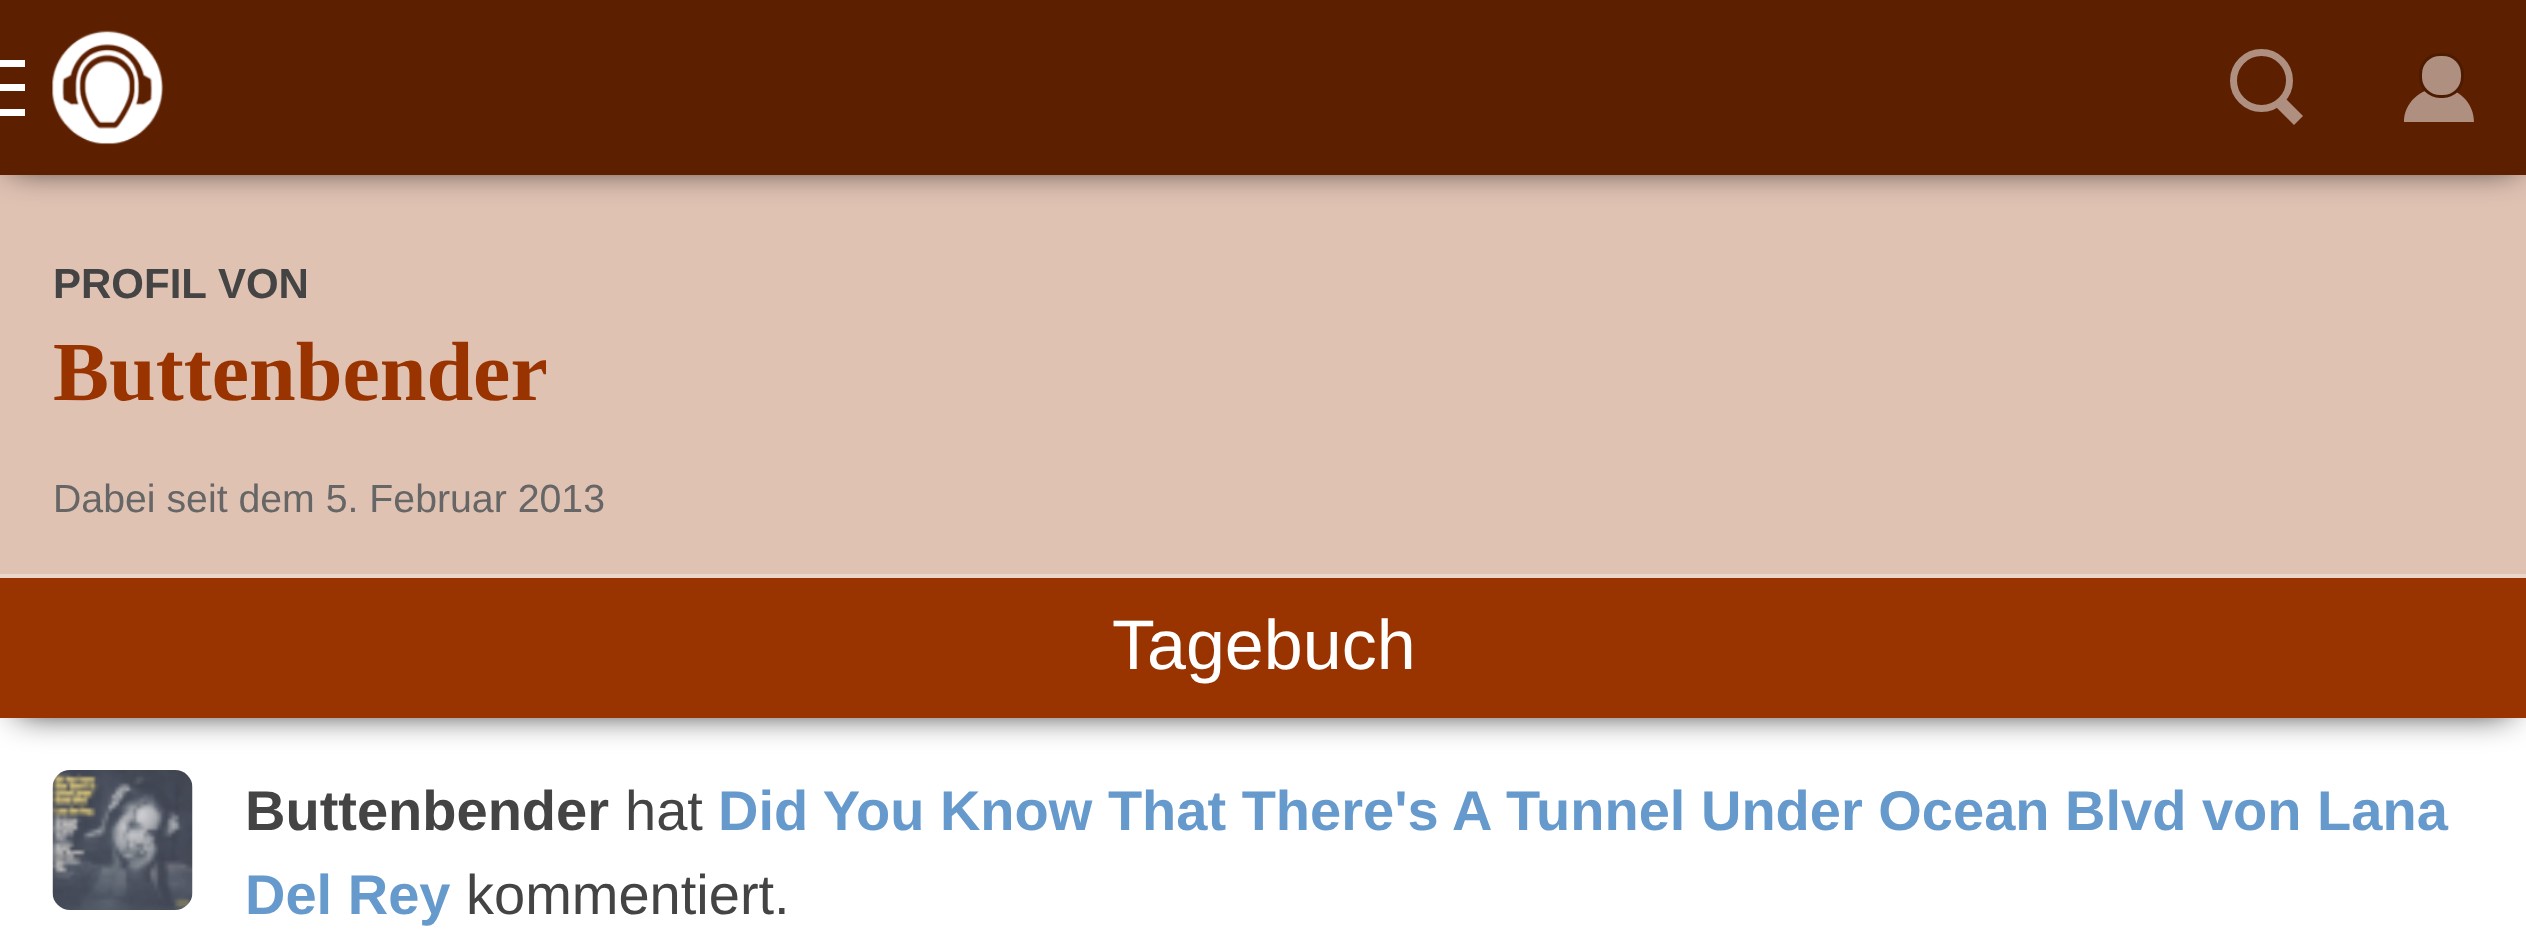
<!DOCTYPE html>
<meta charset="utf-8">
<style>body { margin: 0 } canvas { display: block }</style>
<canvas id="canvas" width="2526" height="937"></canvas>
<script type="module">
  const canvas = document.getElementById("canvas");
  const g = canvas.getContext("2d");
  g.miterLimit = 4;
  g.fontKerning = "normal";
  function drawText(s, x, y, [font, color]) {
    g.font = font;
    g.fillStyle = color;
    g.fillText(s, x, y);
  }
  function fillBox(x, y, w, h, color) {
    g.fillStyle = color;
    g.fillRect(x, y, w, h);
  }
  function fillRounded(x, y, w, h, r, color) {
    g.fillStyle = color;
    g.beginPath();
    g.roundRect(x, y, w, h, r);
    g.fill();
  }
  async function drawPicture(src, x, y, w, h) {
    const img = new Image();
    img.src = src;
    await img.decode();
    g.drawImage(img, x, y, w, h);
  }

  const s1 = ["bold 42px Liberation Sans", "#444444"];
  const s2 = ["bold 84px Liberation Serif", "#993300"];
  const s3 = ["39.25px Liberation Sans", "#666666"];
  const s4 = ["70px Liberation Sans", "#FFFFFF"];
  const s5 = ["bold 56px Liberation Sans", "#444444"];
  const s6 = ["56px Liberation Sans", "#444444"];
  const s7 = ["bold 56px Liberation Sans", "#6699CC"];

  fillBox(0, 0, 2526, 937, "#EBD6CC");
  fillBox(0, 175, 2526, 399, "#E0C2B3");
  g.fillStyle = "#000000";
  g.filter = "blur(17.5px)";
  g.beginPath();
  g.rect(11, 11, 2506, 154);
  g.fill();
  g.filter = "none";
  fillBox(0, 0, 2526, 175, "#5C1F00");
  await drawPicture("pic1.png", 52, 30, 112, 115);
  fillBox(0, 60, 25, 7, "#FFFFFF");
  fillBox(0, 109, 25, 7, "#FFFFFF");
  fillBox(0, 84, 25, 7, "#FFFFFF");
  g.fillStyle = "#AE8F80";
  g.beginPath();
  g.moveTo(2303, 116);
  g.lineTo(2294, 125);
  g.lineTo(2274, 105);
  g.lineTo(2283, 96);
  g.closePath();
  g.fill();
  g.beginPath();
  g.arc(2261.5, 80.5, 28, 0, Math.PI * 2);
  g.strokeStyle = "#AE8F80";
  g.lineWidth = 7;
  g.stroke();
  g.beginPath();
  g.moveTo(2440, 88);
  g.bezierCurveTo(2459, 88, 2474, 103, 2474, 122);
  g.lineTo(2404, 122);
  g.bezierCurveTo(2404, 103, 2420, 88, 2440, 88);
  g.closePath();
  g.moveTo(2440, 122);
  g.closePath();
  g.fill("evenodd");
  g.beginPath();
  g.roundRect(2421, 55, 41, 41, 19);
  g.strokeStyle = "#4F1B00";
  g.lineWidth = 4;
  g.stroke();
  fillRounded(2422, 56, 39, 39, 18, "#AE8F80");
  drawText("PROFIL VON", 53, 298, s1);
  drawText("Buttenbender", 53, 400, s2);
  drawText("Dabei seit dem 5. Februar 2013", 53, 512, s3);
  fillBox(0, 718, 2526, 219, "#FFFFFF");
  g.save();
  g.beginPath();
  g.rect(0, 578, 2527, 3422);
  g.clip();
  g.fillStyle = "#000000";
  g.filter = "blur(17.5px)";
  g.beginPath();
  g.rect(18, 606, 2492, 105);
  g.fill();
  g.filter = "none";
  g.restore();
  fillBox(0, 578, 2526, 140, "#993300");
  drawText("Tagebuch", 1112, 669, s4);
  await drawPicture("pic2.png", 52, 770, 141, 140);
  drawText("Buttenbender", 245, 830, s5);
  drawText("hat", 625, 830, s6);
  drawText("Did You Know That There's A Tunnel Under Ocean Blvd von Lana", 718, 830, s7);
  drawText("Del Rey", 245, 914, s7);
  drawText("kommentiert.", 466, 914, s6);
</script>
